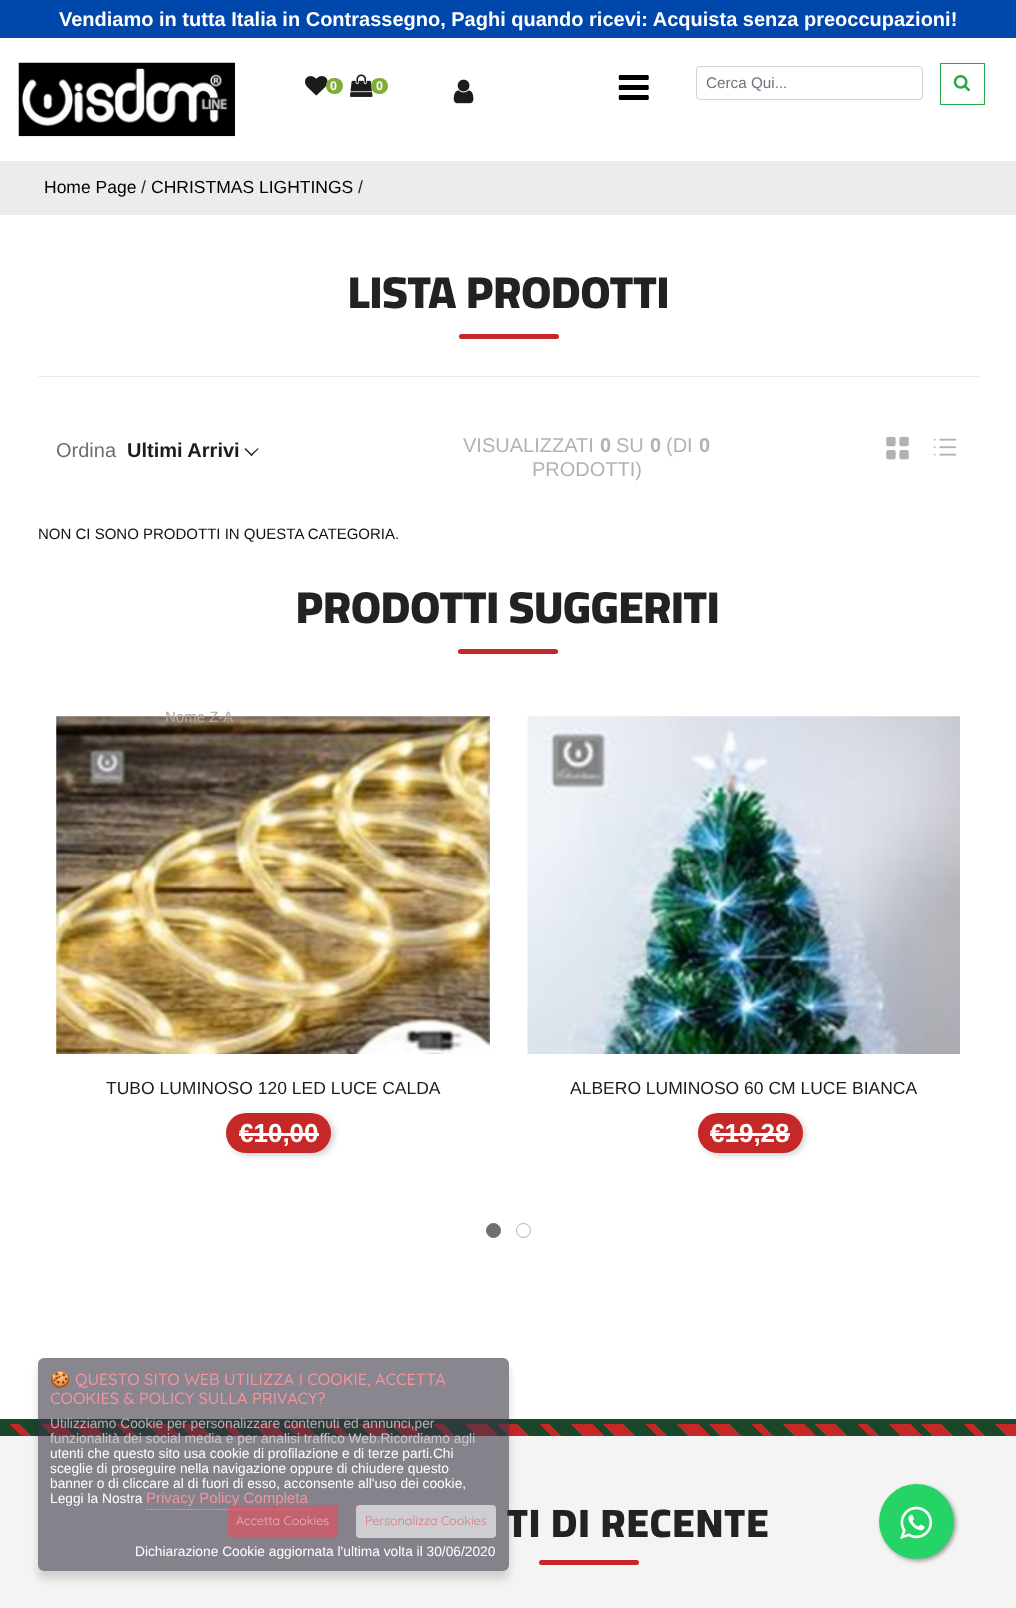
<!DOCTYPE html>
<meta charset="utf-8">
<style>body { margin: 0 } canvas { display: block }</style>
<canvas id="canvas" width="1016" height="1608"></canvas>
<script type="module">
  const canvas = document.getElementById("canvas");
  const g = canvas.getContext("2d");
  g.miterLimit = 4;
  g.fontKerning = "normal";
  function drawText(s, x, y, [font, color]) {
    g.font = font;
    g.fillStyle = color;
    g.fillText(s, x, y);
  }
  function fillBox(x, y, w, h, color) {
    g.fillStyle = color;
    g.fillRect(x, y, w, h);
  }
  function fillRounded(x, y, w, h, r, color) {
    g.fillStyle = color;
    g.beginPath();
    g.roundRect(x, y, w, h, r);
    g.fill();
  }
  async function drawPicture(src, x, y, w, h) {
    const img = new Image();
    img.src = src;
    await img.decode();
    g.drawImage(img, x, y, w, h);
  }
  let gradient;

  const s1 = ["bold 20px Liberation Sans", "#FFFFFF"];
  const s2 = ["bold 12.5px Liberation Sans", "#FFFFFF"];
  const s3 = ["15.25px Liberation Sans", "#6C757D"];
  const s4 = ["17.5px Liberation Sans", "#000000"];
  const s5 = ["17.5px Liberation Sans", "#212529"];
  const s6 = ["900 45px Cairo", "#222222"];
  const s7 = ["20px Liberation Sans", "#6F6F6F"];
  const s8 = ["bold 20px Liberation Sans", "#1C1C1C"];
  const s9 = ["15px Liberation Sans", "#B3A79D"];
  const s10 = ["20px Liberation Sans", "#B2B2B2"];
  const s11 = ["bold 20px Liberation Sans", "#B2B2B2"];
  const s12 = ["15px Liberation Sans", "#111111"];
  const s13 = ["17.5px Liberation Sans", "#1C1C1C"];
  const s14 = ["bold 26px Liberation Sans", "#FFFFFF"];
  const s15 = ["900 40px Cairo", "#222222"];
  const s16 = ["16.25px Noto Color Emoji", "#F5949D"];
  const s17 = ["500 16.25px Quicksand", "#F5949D"];
  const s18 = ["13.75px Liberation Sans", "#B2B2B2"];
  const s19 = ["13.75px Liberation Sans", "#CAC7CB"];
  const s20 = ["13.75px Liberation Sans", "#FFFFFF"];
  const s21 = ["15px Liberation Sans", "#F5949D"];
  const s22 = ["12.5px Quicksand", "#E0B8BD"];
  const s23 = ["12.5px Quicksand", "#DB7984"];

  fillBox(0, 0, 1016, 1608, "#FFFFFF");
  fillBox(0, 0, 1016, 38, "#0047AB");
  drawText("Vendiamo in tutta Italia in Contrassegno, Paghi quando ricevi: Acquista senza preoccupazioni!", 59, 26, s1);
  await drawPicture("pic1.png", 18, 62, 217, 75);
  await drawPicture("pic2.png", 305, 76, 23, 20);
  fillRounded(326, 78, 17, 16, 8, "#7FAD39");
  drawText("0", 330, 90, s2);
  await drawPicture("pic3.png", 350, 74, 23, 23);
  fillRounded(371, 78, 17, 16, 8, "#7FAD39");
  drawText("0", 376, 90, s2);
  await drawPicture("pic4.png", 453, 79, 21, 25);
  await drawPicture("pic5.png", 618, 75, 31, 25);
  g.beginPath();
  g.roundRect(696.5, 66.5, 226, 33, 3.5);
  g.strokeStyle = "#CED4DA";
  g.stroke();
  drawText("Cerca Qui...", 706, 88, s3);
  g.strokeStyle = "#28A745";
  g.strokeRect(940.5, 63.5, 44, 41);
  await drawPicture("pic6.png", 953, 75, 17, 17);
  fillBox(0, 161, 1016, 54, "#ECECEC");
  drawText("Home Page", 44, 193, s4);
  drawText("/", 141, 193, s5);
  drawText("CHRISTMAS LIGHTINGS", 151, 193, s4);
  drawText("/", 358, 193, s5);
  drawText("LISTA PRODOTTI", 348, 308, s6);
  fillRounded(459, 334, 100, 5, 2.5, "#C62828");
  fillBox(38, 376, 941, 1, "#EBEBEB");
  drawText("Ordina", 56, 457, s7);
  drawText("Ultimi Arrivi", 127, 457, s8);
  g.beginPath();
  g.moveTo(258, 448);
  g.lineTo(258.5, 449);
  g.lineTo(251.5, 456);
  g.lineTo(250.5, 455);
  g.closePath();
  g.fill();
  g.beginPath();
  g.moveTo(245.5, 448);
  g.lineTo(252.5, 455);
  g.lineTo(251.5, 456);
  g.lineTo(244.5, 449);
  g.closePath();
  g.fill();
  await drawPicture("pic9.png", 56, 716, 434, 338);
  drawText("Nome Z-A", 165, 722, s9);
  drawText("VISUALIZZATI", 463, 452, s10);
  drawText("0", 600, 452, s11);
  drawText("SU", 616, 452, s10);
  drawText("0", 650, 452, s11);
  drawText("(DI", 666, 452, s10);
  drawText("0", 699, 452, s11);
  drawText("PRODOTTI)", 532, 476, s10);
  await drawPicture("pic7.png", 886, 436, 23, 24);
  await drawPicture("pic8.png", 933, 438, 24, 18);
  drawText("NON CI SONO PRODOTTI IN QUESTA CATEGORIA.", 38, 539, s12);
  drawText("PRODOTTI SUGGERITI", 296, 623, s6);
  fillRounded(458, 649, 100, 5, 2.5, "#C62828");
  drawText("TUBO LUMINOSO 120 LED LUCE CALDA", 106, 1094, s13);
  g.fillStyle = "rgba(0, 0, 0, 0.2)";
  g.filter = "blur(3px)";
  g.beginPath();
  g.roundRect(229, 1115, 105, 40, 20);
  g.fill();
  g.filter = "none";
  fillRounded(226, 1113, 105, 40, 20, "#C62828");
  drawText("€10,00", 239, 1142, s14);
  fillBox(239, 1133, 80, 3, "#FFFFFF");
  await drawPicture("pic10.png", 527, 716, 433, 338);
  drawText("ALBERO LUMINOSO 60 CM LUCE BIANCA", 570, 1094, s13);
  g.fillStyle = "rgba(0, 0, 0, 0.2)";
  g.filter = "blur(3px)";
  g.beginPath();
  g.roundRect(700, 1115, 105, 40, 20);
  g.fill();
  g.filter = "none";
  fillRounded(698, 1113, 105, 40, 20, "#C62828");
  drawText("€19,28", 710, 1142, s14);
  fillBox(710, 1133, 80, 3, "#FFFFFF");
  g.fillStyle = "#707070";
  g.beginPath();
  g.arc(493.5, 1230.5, 7, 0, Math.PI * 2);
  g.fill();
  g.strokeStyle = "#6F6F6F";
  g.stroke();
  g.beginPath();
  g.arc(523.5, 1230.5, 7, 0, Math.PI * 2);
  g.strokeStyle = "#B2B2B2";
  g.stroke();
  fillBox(0, 1436, 1016, 172, "#F4F4F4");
  fillBox(0, 1419, 1016, 5, "#1A472A");
  gradient = g.createLinearGradient(251, 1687, 781, 1157);
  gradient.addColorStop(0, "#1A472A");
  gradient.addColorStop(0.02, "#1A472A");
  gradient.addColorStop(0.02, "#C62828");
  gradient.addColorStop(0.03, "#C62828");
  gradient.addColorStop(0.03, "#1A472A");
  gradient.addColorStop(0.05, "#1A472A");
  gradient.addColorStop(0.05, "#C62828");
  gradient.addColorStop(0.07, "#C62828");
  gradient.addColorStop(0.07, "#1A472A");
  gradient.addColorStop(0.08, "#1A472A");
  gradient.addColorStop(0.08, "#C62828");
  gradient.addColorStop(0.1, "#C62828");
  gradient.addColorStop(0.1, "#1A472A");
  gradient.addColorStop(0.12, "#1A472A");
  gradient.addColorStop(0.12, "#C62828");
  gradient.addColorStop(0.13, "#C62828");
  gradient.addColorStop(0.13, "#1A472A");
  gradient.addColorStop(0.15, "#1A472A");
  gradient.addColorStop(0.15, "#C62828");
  gradient.addColorStop(0.17, "#C62828");
  gradient.addColorStop(0.17, "#1A472A");
  gradient.addColorStop(0.18, "#1A472A");
  gradient.addColorStop(0.18, "#C62828");
  gradient.addColorStop(0.2, "#C62828");
  gradient.addColorStop(0.2, "#1A472A");
  gradient.addColorStop(0.22, "#1A472A");
  gradient.addColorStop(0.22, "#C62828");
  gradient.addColorStop(0.23, "#C62828");
  gradient.addColorStop(0.23, "#1A472A");
  gradient.addColorStop(0.25, "#1A472A");
  gradient.addColorStop(0.25, "#C62828");
  gradient.addColorStop(0.27, "#C62828");
  gradient.addColorStop(0.27, "#1A472A");
  gradient.addColorStop(0.28, "#1A472A");
  gradient.addColorStop(0.28, "#C62828");
  gradient.addColorStop(0.3, "#C62828");
  gradient.addColorStop(0.3, "#1A472A");
  gradient.addColorStop(0.32, "#1A472A");
  gradient.addColorStop(0.32, "#C62828");
  gradient.addColorStop(0.33, "#C62828");
  gradient.addColorStop(0.33, "#1A472A");
  gradient.addColorStop(0.35, "#1A472A");
  gradient.addColorStop(0.35, "#C62828");
  gradient.addColorStop(0.37, "#C62828");
  gradient.addColorStop(0.37, "#1A472A");
  gradient.addColorStop(0.38, "#1A472A");
  gradient.addColorStop(0.38, "#C62828");
  gradient.addColorStop(0.4, "#C62828");
  gradient.addColorStop(0.4, "#1A472A");
  gradient.addColorStop(0.42, "#1A472A");
  gradient.addColorStop(0.42, "#C62828");
  gradient.addColorStop(0.43, "#C62828");
  gradient.addColorStop(0.43, "#1A472A");
  gradient.addColorStop(0.45, "#1A472A");
  gradient.addColorStop(0.45, "#C62828");
  gradient.addColorStop(0.47, "#C62828");
  gradient.addColorStop(0.47, "#1A472A");
  gradient.addColorStop(0.48, "#1A472A");
  gradient.addColorStop(0.48, "#C62828");
  gradient.addColorStop(0.5, "#C62828");
  gradient.addColorStop(0.5, "#1A472A");
  gradient.addColorStop(0.52, "#1A472A");
  gradient.addColorStop(0.52, "#C62828");
  gradient.addColorStop(0.53, "#C62828");
  gradient.addColorStop(0.53, "#1A472A");
  gradient.addColorStop(0.55, "#1A472A");
  gradient.addColorStop(0.55, "#C62828");
  gradient.addColorStop(0.57, "#C62828");
  gradient.addColorStop(0.57, "#1A472A");
  gradient.addColorStop(0.58, "#1A472A");
  gradient.addColorStop(0.58, "#C62828");
  gradient.addColorStop(0.6, "#C62828");
  gradient.addColorStop(0.6, "#1A472A");
  gradient.addColorStop(0.62, "#1A472A");
  gradient.addColorStop(0.62, "#C62828");
  gradient.addColorStop(0.63, "#C62828");
  gradient.addColorStop(0.63, "#1A472A");
  gradient.addColorStop(0.65, "#1A472A");
  gradient.addColorStop(0.65, "#C62828");
  gradient.addColorStop(0.67, "#C62828");
  gradient.addColorStop(0.67, "#1A472A");
  gradient.addColorStop(0.68, "#1A472A");
  gradient.addColorStop(0.68, "#C62828");
  gradient.addColorStop(0.7, "#C62828");
  gradient.addColorStop(0.7, "#1A472A");
  gradient.addColorStop(0.72, "#1A472A");
  gradient.addColorStop(0.72, "#C62828");
  gradient.addColorStop(0.73, "#C62828");
  gradient.addColorStop(0.73, "#1A472A");
  gradient.addColorStop(0.75, "#1A472A");
  gradient.addColorStop(0.75, "#C62828");
  gradient.addColorStop(0.77, "#C62828");
  gradient.addColorStop(0.77, "#1A472A");
  gradient.addColorStop(0.78, "#1A472A");
  gradient.addColorStop(0.78, "#C62828");
  gradient.addColorStop(0.8, "#C62828");
  gradient.addColorStop(0.8, "#1A472A");
  gradient.addColorStop(0.82, "#1A472A");
  gradient.addColorStop(0.82, "#C62828");
  gradient.addColorStop(0.83, "#C62828");
  gradient.addColorStop(0.83, "#1A472A");
  gradient.addColorStop(0.85, "#1A472A");
  gradient.addColorStop(0.85, "#C62828");
  gradient.addColorStop(0.87, "#C62828");
  gradient.addColorStop(0.87, "#1A472A");
  gradient.addColorStop(0.88, "#1A472A");
  gradient.addColorStop(0.88, "#C62828");
  gradient.addColorStop(0.9, "#C62828");
  gradient.addColorStop(0.9, "#1A472A");
  gradient.addColorStop(0.92, "#1A472A");
  gradient.addColorStop(0.92, "#C62828");
  gradient.addColorStop(0.93, "#C62828");
  gradient.addColorStop(0.93, "#1A472A");
  gradient.addColorStop(0.95, "#1A472A");
  gradient.addColorStop(0.95, "#C62828");
  gradient.addColorStop(0.97, "#C62828");
  gradient.addColorStop(0.97, "#1A472A");
  gradient.addColorStop(0.98, "#1A472A");
  gradient.addColorStop(0.98, "#C62828");
  gradient.addColorStop(1, "#C62828");
  g.fillStyle = gradient;
  g.fillRect(0, 1424, 1016, 12);
  g.save();
  g.beginPath();
  g.moveTo(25, 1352);
  g.lineTo(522, 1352);
  g.lineTo(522, 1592);
  g.lineTo(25, 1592);
  g.closePath();
  g.moveTo(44, 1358);
  g.lineTo(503, 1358);
  g.bezierCurveTo(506.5, 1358, 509, 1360.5, 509, 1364);
  g.lineTo(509, 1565);
  g.bezierCurveTo(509, 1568.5, 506.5, 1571, 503, 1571);
  g.lineTo(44, 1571);
  g.bezierCurveTo(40.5, 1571, 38, 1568.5, 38, 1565);
  g.lineTo(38, 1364);
  g.bezierCurveTo(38, 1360.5, 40.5, 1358, 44, 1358);
  g.closePath();
  g.clip("evenodd");
  g.fillStyle = "rgba(0, 0, 0, 0.15)";
  g.filter = "blur(4px)";
  g.beginPath();
  g.roundRect(38, 1365, 471, 214, 6);
  g.fill();
  g.filter = "none";
  g.restore();
  g.letterSpacing = "1.25px";
  drawText("TI DI RECENTE", 507, 1537, s15);
  fillRounded(38, 1358, 471, 213, 6, "rgba(59, 54, 70, 0.6)");
  g.letterSpacing = "0px";
  drawText("🍪", 50, 1385, s16);
  drawText("QUESTO SITO WEB UTILIZZA I COOKIE, ACCETTA", 75, 1385, s17);
  drawText("COOKIES & POLICY SULLA PRIVACY?", 50, 1404, s17);
  drawText("Utilizziamo Cookie per personalizzare contenuti ed annunci,per", 50, 1428, s18);
  drawText("funzionalità dei social media e per analisi traffico Web.Ricordiamo agli", 50, 1443, s19);
  drawText("utenti che questo sito usa cookie di profilazione e di terze parti.Chi", 50, 1458, s20);
  drawText("sceglie di proseguire nella navigazione oppure di chiudere questo", 50, 1473, s20);
  drawText("banner o di cliccare al di fuori di esso, acconsente all'uso dei cookie,", 50, 1488, s20);
  drawText("Leggi la Nostra", 50, 1503, s20);
  drawText("Privacy Policy Completa", 146, 1503, s21);
  g.beginPath();
  g.moveTo(146, 1509.5);
  g.lineTo(307.5, 1509.5);
  g.strokeStyle = "rgba(255, 255, 255, 0.45)";
  g.lineWidth = 1.2;
  g.setLineDash([1.25, 1.25]);
  g.stroke();
  fillRounded(228, 1505, 110, 33, 4, "rgba(238, 75, 90, 0.6)");
  drawText("Accetta Cookies", 236, 1525, s22);
  fillRounded(356, 1505, 140, 33, 4, "rgba(255, 255, 255, 0.6)");
  drawText("Personalizza Cookies", 365, 1525, s23);
  drawText("Dichiarazione Cookie aggiornata l'ultima volta il 30/06/2020", 135, 1556, s20);
  fillRounded(539, 1560, 100, 5, 2.5, "#C62828");
  g.fillStyle = "#999999";
  g.filter = "blur(2px)";
  g.beginPath();
  g.roundRect(881, 1486, 75, 75, 37.5);
  g.fill();
  g.filter = "none";
  g.fillStyle = "#25D366";
  g.beginPath();
  g.arc(916.5, 1521.5, 37.5, 0, Math.PI * 2);
  g.fill();
  await drawPicture("pic11.png", 900, 1506, 33, 33);
</script>
